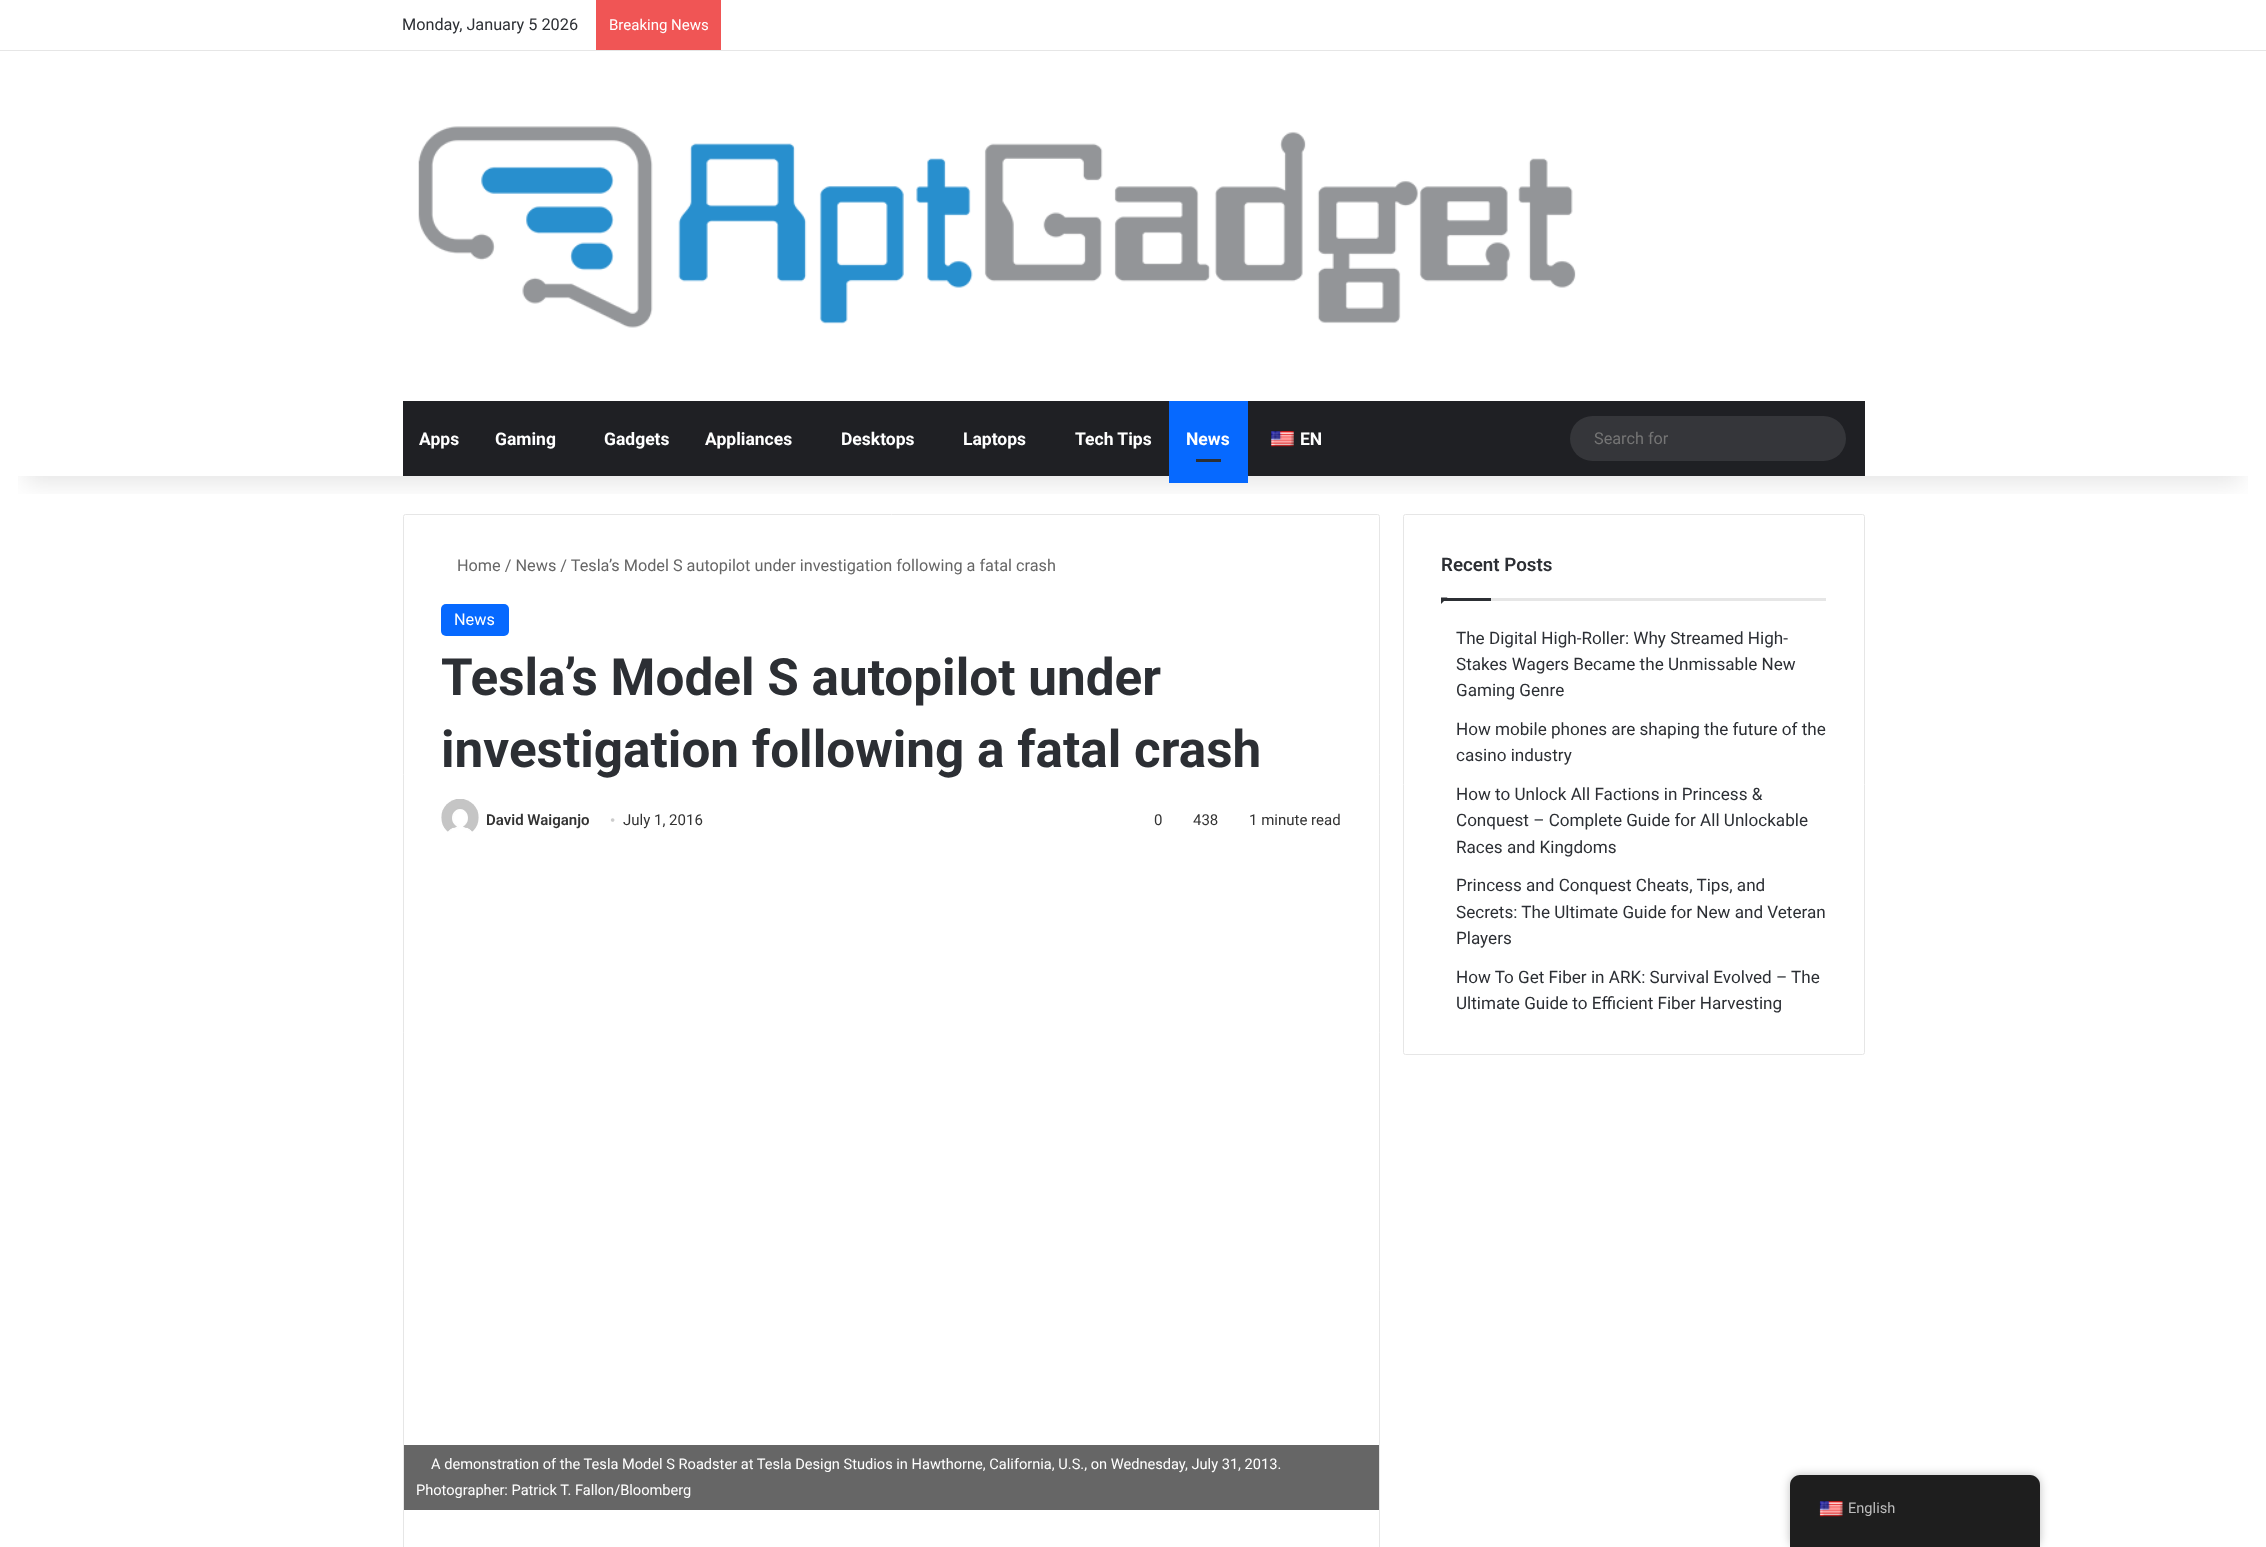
<!DOCTYPE html>
<meta charset="utf-8">
<style>body { margin: 0 } canvas { display: block }</style>
<canvas id="canvas" width="2266" height="1547"></canvas>
<script type="module">
  const canvas = document.getElementById("canvas");
  const g = canvas.getContext("2d");
  g.miterLimit = 4;
  g.fontKerning = "normal";
  function drawText(s, x, y, [font, color]) {
    g.font = font;
    g.fillStyle = color;
    g.fillText(s, x, y);
  }
  function fillBox(x, y, w, h, color) {
    g.fillStyle = color;
    g.fillRect(x, y, w, h);
  }
  function fillRounded(x, y, w, h, r, color) {
    g.fillStyle = color;
    g.beginPath();
    g.roundRect(x, y, w, h, r);
    g.fill();
  }
  async function drawPicture(src, x, y, w, h) {
    const img = new Image();
    img.src = src;
    await img.decode();
    g.drawImage(img, x, y, w, h);
  }

  const s1 = ["16.25px Roboto", "#2C2F34"];
  const s2 = ["15px Roboto", "#FFFFFF"];
  const s3 = ["bold 17.5px Roboto", "#FFFFFF"];
  const s4 = ["16.25px Roboto", "#757575"];
  const s5 = ["16.25px Roboto", "#666666"];
  const s6 = ["16.25px Roboto", "#FFFFFF"];
  const s7 = ["bold 51.25px Roboto", "#2C2F34"];
  const s8 = ["600 15px Roboto", "#333333"];
  const s9 = ["15px Liberation Serif", "#CCCCCC"];
  const s10 = ["15px Roboto", "#333333"];
  const s11 = ["14.62px Roboto", "#FFFFFF"];
  const s12 = ["600 18.75px Roboto", "#2C2F34"];
  const s13 = ["17.1px Roboto", "#2C2F34"];
  const s14 = ["14.62px Roboto", "#BDBDBD"];

  fillBox(0, 0, 2266, 1547, "#FFFFFF");
  g.beginPath();
  g.roundRect(403.5, 514.5, 976, 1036, 2);
  g.strokeStyle = "#E6E6E6";
  g.stroke();
  g.beginPath();
  g.roundRect(1403.5, 514.5, 461, 540, 2);
  g.stroke();
  g.save();
  g.beginPath();
  g.rect(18, 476, 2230, 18);
  g.clip();
  g.fillStyle = "rgba(0, 0, 0, 0.1)";
  g.filter = "blur(12.5px)";
  g.beginPath();
  g.rect(25, 56, 2216, 427);
  g.fill();
  g.filter = "none";
  g.restore();
  fillBox(0, 50, 2266, 1, "#E6E6E6");
  drawText("Monday, January 5 2026", 402, 30, s1);
  fillBox(596, 0, 125, 50, "#F05555");
  drawText("Breaking News", 609, 30, s2);
  await drawPicture("pic1.png", 418, 126, 1158, 202);
  fillBox(403, 401, 1462, 75, "#1F2024");
  drawText("Apps", 419, 445, s3);
  drawText("Gaming", 495, 445, s3);
  drawText("Gadgets", 604, 445, s3);
  drawText("Appliances", 705, 445, s3);
  drawText("Desktops", 841, 445, s3);
  drawText("Laptops", 963, 445, s3);
  drawText("Tech Tips", 1075, 445, s3);
  fillBox(1169, 401, 79, 82, "#0669FF");
  drawText("News", 1186, 445, s3);
  fillBox(1196, 459, 25, 3, "#2C2F34");
  await drawPicture("pic2.png", 1271, 431, 23, 16);
  drawText("EN", 1300, 445, s3);
  fillRounded(1570, 416, 276, 45, 22.5, "#35363A");
  drawText("Search for", 1594, 444, s4);
  drawText("Home / News / Tesla’s Model S autopilot under investigation following a fatal crash", 457, 571, s5);
  fillRounded(441, 604, 68, 32, 5, "#0669FF");
  drawText("News", 454, 625, s6);
  drawText("Tesla’s Model S autopilot under", 441, 695, s7);
  drawText("investigation following a fatal crash", 441, 767, s7);
  await drawPicture("pic3.png", 441, 799, 38, 33);
  drawText("David Waiganjo", 486, 825, s8);
  drawText("•", 610, 825, s9);
  drawText("July 1, 2016", 623, 825, s10);
  drawText("0", 1154, 825, s10);
  drawText("438", 1193, 825, s10);
  drawText("1 minute read", 1249, 825, s10);
  fillBox(404, 1445, 975, 65, "#666666");
  drawText("A demonstration of the Tesla Model S Roadster at Tesla Design Studios in Hawthorne, California, U.S., on Wednesday, July 31, 2013.", 431, 1469, s11);
  drawText("Photographer: Patrick T. Fallon/Bloomberg", 416, 1495, s11);
  fillBox(1491, 598, 335, 3, "#E6E6E6");
  drawText("Recent Posts", 1441, 571, s12);
  g.beginPath();
  g.moveTo(1441, 597.5);
  g.lineTo(1447.5, 597.5);
  g.lineTo(1441, 604);
  g.closePath();
  g.fill();
  fillBox(1441, 598, 50, 3, "#2C2F34");
  drawText("The Digital High-Roller: Why Streamed High-", 1456, 644, s13);
  drawText("Stakes Wagers Became the Unmissable New", 1456, 670, s13);
  drawText("Gaming Genre", 1456, 696, s13);
  drawText("How mobile phones are shaping the future of the", 1456, 735, s13);
  drawText("casino industry", 1456, 761, s13);
  drawText("How to Unlock All Factions in Princess &", 1456, 800, s13);
  drawText("Conquest – Complete Guide for All Unlockable", 1456, 826, s13);
  drawText("Races and Kingdoms", 1456, 853, s13);
  drawText("Princess and Conquest Cheats, Tips, and", 1456, 891, s13);
  drawText("Secrets: The Ultimate Guide for New and Veteran", 1456, 918, s13);
  drawText("Players", 1456, 944, s13);
  drawText("How To Get Fiber in ARK: Survival Evolved – The", 1456, 983, s13);
  drawText("Ultimate Guide to Efficient Fiber Harvesting", 1456, 1009, s13);
  g.fillStyle = "rgba(0, 0, 0, 0.25)";
  g.filter = "blur(5px)";
  g.beginPath();
  g.roundRect(1790, 1475, 250, 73, 10);
  g.fill();
  g.filter = "none";
  g.fillStyle = "#1E1E1E";
  g.beginPath();
  g.moveTo(1800, 1475);
  g.lineTo(2030, 1475);
  g.bezierCurveTo(2035.5, 1475, 2040, 1479.5, 2040, 1485);
  g.lineTo(2040, 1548);
  g.lineTo(1790, 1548);
  g.lineTo(1790, 1485);
  g.bezierCurveTo(1790, 1479.5, 1794.5, 1475, 1800, 1475);
  g.closePath();
  g.fill();
  await drawPicture("pic4.png", 1819, 1501, 24, 16);
  drawText("English", 1848, 1513, s14);
</script>
